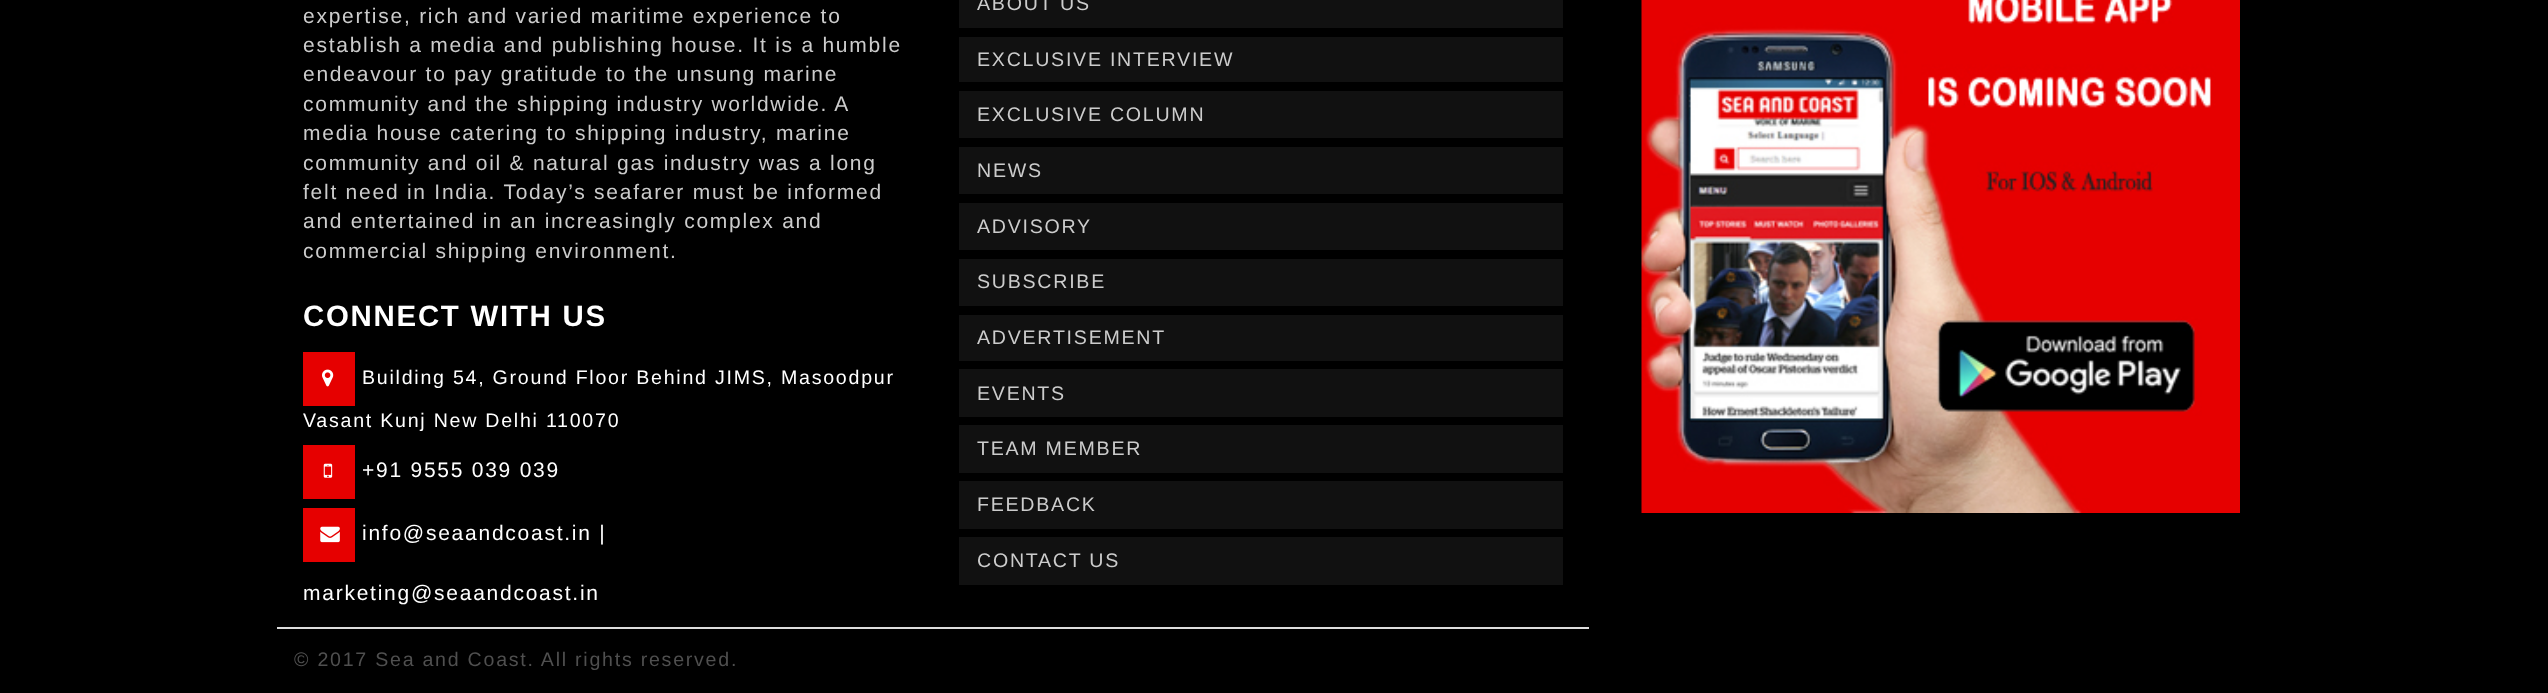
<!DOCTYPE html>
<meta charset="utf-8">
<style>body { margin: 0 } canvas { display: block }</style>
<canvas id="canvas" width="2548" height="693"></canvas>
<script type="module">
  const canvas = document.getElementById("canvas");
  const g = canvas.getContext("2d");
  g.miterLimit = 4;
  g.fontKerning = "normal";
  function drawText(s, x, y, [font, color]) {
    g.font = font;
    g.fillStyle = color;
    g.fillText(s, x, y);
  }
  function fillBox(x, y, w, h, color) {
    g.fillStyle = color;
    g.fillRect(x, y, w, h);
  }
  async function drawPicture(src, x, y, w, h) {
    const img = new Image();
    img.src = src;
    await img.decode();
    g.drawImage(img, x, y, w, h);
  }

  const s1 = ["21px Liberation Sans", "#CCCCCC"];
  const s2 = ["bold 29.4px Liberation Sans", "#FFFFFF"];
  const s3 = ["19.6px Liberation Sans", "#FFFFFF"];
  const s4 = ["21px Liberation Sans", "#FFFFFF"];
  const s5 = ["19.6px Liberation Sans", "#CCCCCC"];
  const s6 = ["19.6px Liberation Sans", "#4F4F4F"];

  fillBox(0, 0, 2548, 693, "#000000");
  g.letterSpacing = "1.75px";
  drawText("expertise, rich and varied maritime experience to", 303, 23, s1);
  drawText("establish a media and publishing house. It is a humble", 303, 52, s1);
  drawText("endeavour to pay gratitude to the unsung marine", 303, 81, s1);
  g.wordSpacing = "-0.25px";
  drawText("community and the shipping industry worldwide. A", 303, 111, s1);
  g.wordSpacing = "0px";
  drawText("media house catering to shipping industry, marine", 303, 140, s1);
  drawText("community and oil & natural gas industry was a long", 303, 170, s1);
  drawText("felt need in India. Today’s seafarer must be informed", 303, 199, s1);
  drawText("and entertained in an increasingly complex and", 303, 228, s1);
  drawText("commercial shipping environment.", 303, 258, s1);
  drawText("CONNECT WITH US", 303, 326, s2);
  fillBox(303, 352, 52, 54, "#E60000");
  await drawPicture("pic1.png", 322, 369, 12, 18);
  drawText("Building 54, Ground Floor Behind JIMS, Masoodpur", 362, 384, s3);
  drawText("Vasant Kunj New Delhi 110070", 303, 427, s3);
  fillBox(303, 445, 52, 54, "#E60000");
  await drawPicture("pic2.png", 323, 463, 10, 15);
  drawText("+91 9555 039 039", 362, 477, s4);
  fillBox(303, 508, 52, 54, "#E60000");
  await drawPicture("pic3.png", 320, 526, 20, 17);
  drawText("info@seaandcoast.in |", 362, 540, s4);
  drawText("marketing@seaandcoast.in", 303, 600, s4);
  fillBox(959, 0, 604, 28, "#111111");
  drawText("ABOUT US", 977, 10, s5);
  fillBox(959, 37, 604, 45, "#111111");
  drawText("EXCLUSIVE INTERVIEW", 977, 66, s5);
  fillBox(959, 91, 604, 47, "#111111");
  drawText("EXCLUSIVE COLUMN", 977, 121, s5);
  fillBox(959, 147, 604, 47, "#111111");
  drawText("NEWS", 977, 177, s5);
  fillBox(959, 203, 604, 47, "#111111");
  drawText("ADVISORY", 977, 233, s5);
  fillBox(959, 259, 604, 47, "#111111");
  drawText("SUBSCRIBE", 977, 288, s5);
  fillBox(959, 315, 604, 46, "#111111");
  drawText("ADVERTISEMENT", 977, 344, s5);
  fillBox(959, 369, 604, 48, "#111111");
  drawText("EVENTS", 977, 400, s5);
  fillBox(959, 425, 604, 48, "#111111");
  drawText("TEAM MEMBER", 977, 455, s5);
  fillBox(959, 481, 604, 48, "#111111");
  drawText("FEEDBACK", 977, 511, s5);
  fillBox(959, 537, 604, 48, "#111111");
  drawText("CONTACT US", 977, 567, s5);
  fillBox(277, 627, 1312, 2, "#DDDDDD");
  drawText("© 2017 Sea and Coast. All rights reserved.", 294, 666, s6);
  await drawPicture("pic4.png", 1641, 0, 599, 513);
</script>
